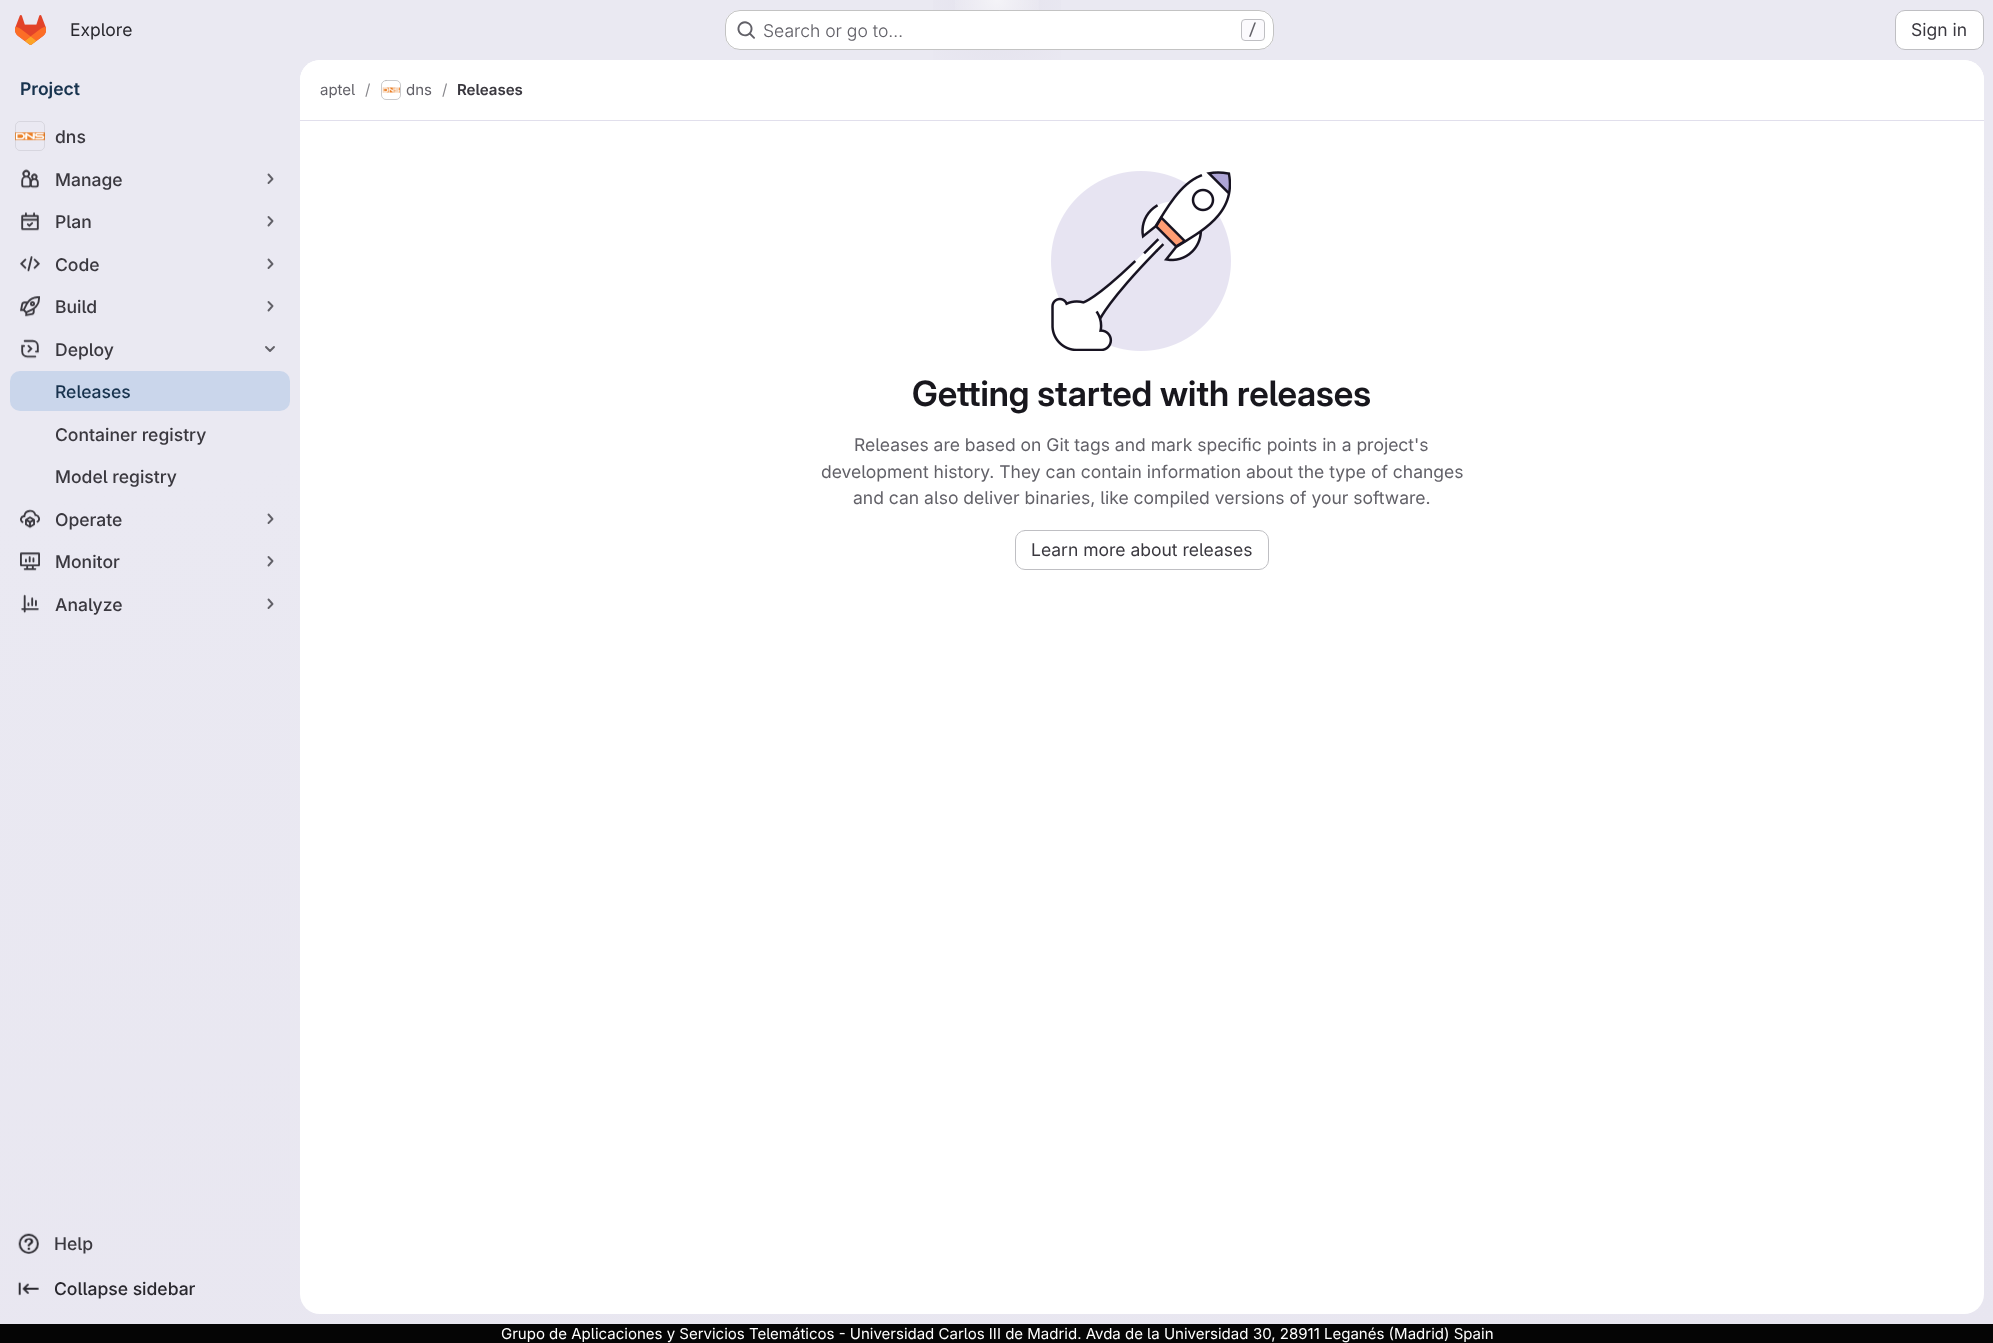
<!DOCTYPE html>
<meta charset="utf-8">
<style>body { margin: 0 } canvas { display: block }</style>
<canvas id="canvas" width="1993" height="1343"></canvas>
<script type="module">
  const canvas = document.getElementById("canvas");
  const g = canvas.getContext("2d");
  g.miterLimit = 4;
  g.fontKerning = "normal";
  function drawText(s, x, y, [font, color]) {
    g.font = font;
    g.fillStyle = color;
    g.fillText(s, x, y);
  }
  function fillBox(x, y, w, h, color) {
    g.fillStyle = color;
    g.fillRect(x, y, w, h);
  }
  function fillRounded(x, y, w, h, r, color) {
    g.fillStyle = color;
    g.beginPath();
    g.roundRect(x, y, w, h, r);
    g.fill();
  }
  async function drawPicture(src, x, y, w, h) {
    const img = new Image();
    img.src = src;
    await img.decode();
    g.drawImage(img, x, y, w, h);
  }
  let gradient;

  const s1 = ["17.5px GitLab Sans", "#28272D"];
  const s2 = ["300 17.5px GitLab Sans", "#626168"];
  const s3 = ["500 15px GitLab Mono", "#626168"];
  const s4 = ["17.5px GitLab Sans", "#3A383F"];
  const s5 = ["600 17.5px 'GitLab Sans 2'", "#18334E"];
  const s6 = ["500 17.5px GitLab Sans", "#3A383F"];
  const s7 = ["500 17.5px GitLab Sans", "#18334E"];
  const s8 = ["500 17.5px GitLab Sans", "#28272D"];
  const s9 = ["15px GitLab Sans", "#626168"];
  const s10 = ["15px GitLab Sans", "#89888D"];
  const s11 = ["600 15px 'GitLab Sans 2'", "#3A383F"];
  const s12 = ["600 35px GitLab Sans", "#18171D"];
  const s13 = ["17.5px GitLab Sans", "#626168"];
  const s14 = ["15px GitLab Sans", "#FFFFFF"];

  fillBox(0, 0, 1993, 1343, "#FFFFFF");
  gradient = g.createLinearGradient(1142, 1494, 852, -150);
  gradient.addColorStop(0, "#E8E6F0");
  gradient.addColorStop(0.7, "#EAE9F2");
  g.fillStyle = gradient;
  g.fillRect(0, 0, 1993, 1324);
  gradient = g.createRadialGradient(997, 0, 0, 997, 0, 997);
  gradient.addColorStop(0, "#E4E2ED");
  gradient.addColorStop(0.09, "rgba(228, 226, 237, 0)");
  g.fillStyle = gradient;
  g.beginPath();
  g.rect(933, 0, 128, 60);
  g.save();
  g.clip();
  g.scale(1, 1344 / 997);
  g.fillRect(0, 0, 1993, 997);
  g.restore();
  gradient = g.createRadialGradient(997, 0, 0, 997, 0, 1673);
  gradient.addColorStop(0, "rgba(255, 255, 255, 0.6)");
  gradient.addColorStop(0.03, "rgba(255, 255, 255, 0)");
  g.fillStyle = gradient;
  g.fillRect(955, 0, 84, 10);
  await drawPicture("pic1.png", 15, 15, 31, 30);
  drawText("Explore", 70, 36, s1);
  fillRounded(725, 10, 549, 40, 15, "#FFFFFF");
  g.beginPath();
  g.roundRect(725.5, 10.5, 548, 39, 14.5);
  g.strokeStyle = "rgba(5, 5, 6, 0.24)";
  g.stroke();
  await drawPicture("pic2.png", 737, 21, 18, 18);
  drawText("Search or go to…", 763, 37, s2);
  g.fillStyle = "#FBFAFD";
  g.beginPath();
  g.roundRect(1241.5, 19.5, 23, 21, 3.5);
  g.fill();
  g.strokeStyle = "#BFBFC3";
  g.stroke();
  drawText("/", 1248, 35, s3);
  g.fillStyle = "#FFFFFF";
  g.beginPath();
  g.roundRect(1895.5, 10.5, 88, 39, 9.5);
  g.fill();
  g.stroke();
  drawText("Sign in", 1911, 36, s4);
  drawText("Project", 20, 95, s5);
  await drawPicture("pic3.png", 15, 132, 30, 9);
  g.beginPath();
  g.roundRect(15.5, 121.5, 29, 29, 4.5);
  g.strokeStyle = "rgba(5, 5, 6, 0.08)";
  g.stroke();
  drawText("dns", 55, 143, s6);
  await drawPicture("pic4.png", 21, 169, 18, 20);
  drawText("Manage", 55, 186, s6);
  g.beginPath();
  g.moveTo(268.5, 174.5);
  g.lineTo(272.5, 179);
  g.lineTo(268.5, 183);
  g.strokeStyle = "#626168";
  g.lineWidth = 1.9;
  g.lineCap = "round";
  g.lineJoin = "round";
  g.stroke();
  await drawPicture("pic5.png", 21, 212, 18, 19);
  drawText("Plan", 55, 228, s6);
  g.beginPath();
  g.moveTo(268.5, 217);
  g.lineTo(272.5, 221);
  g.lineTo(268.5, 225.5);
  g.stroke();
  await drawPicture("pic6.png", 20, 256, 20, 16);
  drawText("Code", 55, 271, s6);
  g.beginPath();
  g.moveTo(268.5, 259.5);
  g.lineTo(272.5, 264);
  g.lineTo(268.5, 268);
  g.stroke();
  await drawPicture("pic7.png", 20, 296, 20, 21);
  drawText("Build", 55, 313, s6);
  g.beginPath();
  g.moveTo(268.5, 302);
  g.lineTo(272.5, 306);
  g.lineTo(268.5, 310.5);
  g.stroke();
  await drawPicture("pic8.png", 21, 339, 18, 20);
  drawText("Deploy", 55, 356, s6);
  g.beginPath();
  g.moveTo(274, 347);
  g.lineTo(270, 351);
  g.lineTo(266, 347);
  g.stroke();
  fillRounded(10, 371, 280, 40, 10, "#CAD6EB");
  drawText("Releases", 55, 398, s7);
  drawText("Container registry", 55, 441, s6);
  drawText("Model registry", 55, 483, s6);
  await drawPicture("pic9.png", 20, 509, 20, 20);
  drawText("Operate", 55, 526, s6);
  g.beginPath();
  g.moveTo(268.5, 514.5);
  g.lineTo(272.5, 519);
  g.lineTo(268.5, 523);
  g.stroke();
  await drawPicture("pic10.png", 20, 552, 20, 19);
  drawText("Monitor", 55, 568, s6);
  g.beginPath();
  g.moveTo(268.5, 557);
  g.lineTo(272.5, 561);
  g.lineTo(268.5, 565.5);
  g.stroke();
  await drawPicture("pic11.png", 21, 594, 18, 20);
  drawText("Analyze", 55, 611, s6);
  g.beginPath();
  g.moveTo(268.5, 599.5);
  g.lineTo(272.5, 604);
  g.lineTo(268.5, 608);
  g.stroke();
  await drawPicture("pic12.png", 18, 1233, 21, 21);
  drawText("Help", 54, 1250, s6);
  await drawPicture("pic13.png", 18, 1281, 21, 15);
  drawText("Collapse sidebar", 54, 1295, s8);
  fillRounded(300, 60, 1684, 1254, 20, "#FFFFFF");
  g.beginPath();
  g.roundRect(300, 60, 1684, 61, [20, 20, 0, 0]);
  g.fill();
  fillBox(300, 120, 1684, 1, "#E1DFEC");
  drawText("aptel", 320, 95, s9);
  drawText("/", 365, 95, s10);
  g.beginPath();
  g.roundRect(381.5, 80.5, 19, 19, 4.5);
  g.strokeStyle = "#DCDCDE";
  g.lineWidth = 1;
  g.lineJoin = "miter";
  g.stroke();
  await drawPicture("pic14.png", 382, 87, 18, 6);
  g.beginPath();
  g.roundRect(381.5, 80.5, 19, 19, 4.5);
  g.strokeStyle = "rgba(5, 5, 6, 0.08)";
  g.stroke();
  drawText("dns", 406, 95, s9);
  drawText("/", 442, 95, s10);
  drawText("Releases", 457, 95, s11);
  await drawPicture("pic15.png", 1051, 171, 180, 180);
  drawText("Getting started with releases", 912, 406, s12);
  drawText("Releases are based on Git tags and mark specific points in a project's", 854, 451, s13);
  drawText("development history. They can contain information about the type of changes", 821, 478, s13);
  drawText("and can also deliver binaries, like compiled versions of your software.", 853, 504, s13);
  g.beginPath();
  g.roundRect(1015.5, 530.5, 253, 39, 9.5);
  g.strokeStyle = "#BFBFC3";
  g.stroke();
  drawText("Learn more about releases", 1031, 556, s4);
  fillBox(0, 1324, 1993, 19, "#050505");
  drawText("Grupo de Aplicaciones y Servicios Telemáticos - Universidad Carlos III de Madrid. Avda de la Universidad 30, 28911 Leganés (Madrid) Spain", 501, 1339, s14);
</script>
